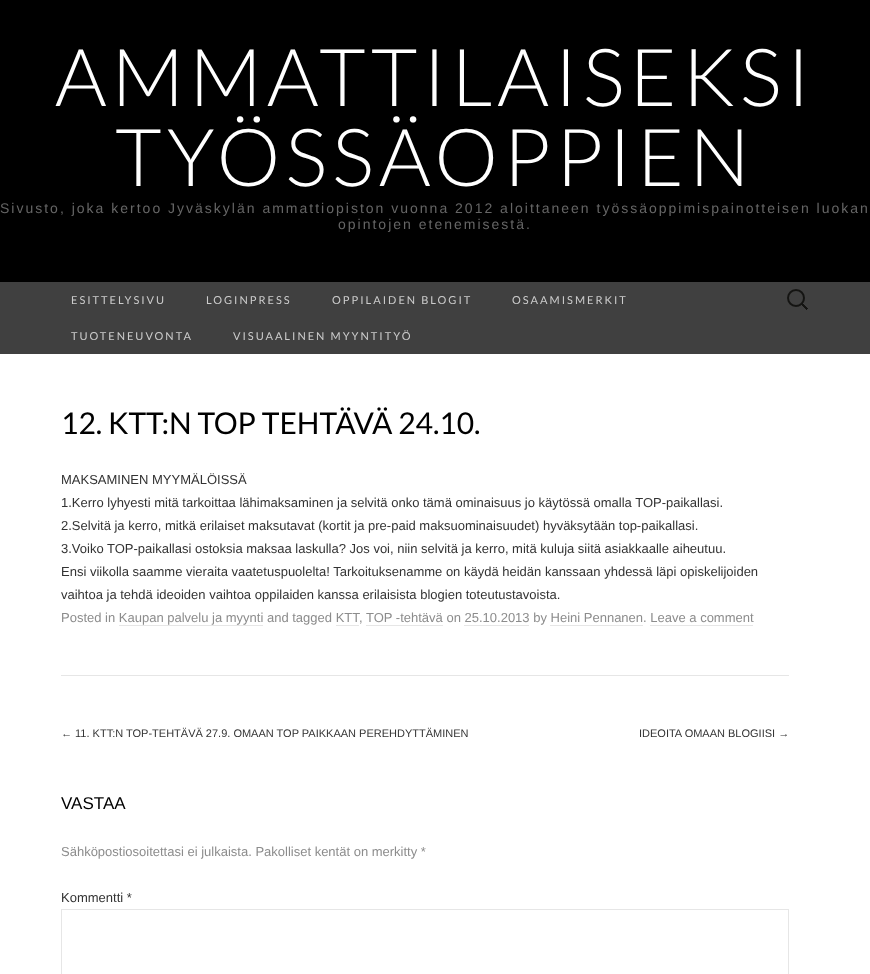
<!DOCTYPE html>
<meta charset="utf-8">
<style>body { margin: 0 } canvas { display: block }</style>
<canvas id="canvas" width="870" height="974"></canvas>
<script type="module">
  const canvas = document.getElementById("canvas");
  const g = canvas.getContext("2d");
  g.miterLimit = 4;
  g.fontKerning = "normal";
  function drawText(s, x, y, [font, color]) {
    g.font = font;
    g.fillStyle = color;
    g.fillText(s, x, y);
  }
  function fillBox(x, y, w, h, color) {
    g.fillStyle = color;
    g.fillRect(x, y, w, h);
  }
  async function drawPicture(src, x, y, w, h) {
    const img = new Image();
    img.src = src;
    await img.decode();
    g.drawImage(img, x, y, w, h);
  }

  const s1 = ["300 80px Lato", "#FFFFFF"];
  const s2 = ["14px Liberation Sans", "#666666"];
  const s3 = ["11px Lato", "#CCCCCC"];
  const s4 = ["30px Lato", "#000000"];
  const s5 = ["13px Liberation Sans", "#333333"];
  const s6 = ["13px Liberation Sans", "#8C8C8C"];
  const s7 = ["11px Liberation Sans", "#333333"];
  const s8 = ["17px Liberation Sans", "#000000"];

  fillBox(0, 0, 870, 974, "#FFFFFF");
  fillBox(0, 0, 870, 282, "#000000");
  g.letterSpacing = "5px";
  drawText("AMMATTILAISEKSI", 55, 106, s1);
  drawText("TYÖSSÄOPPIEN", 115, 186, s1);
  g.letterSpacing = "2px";
  drawText("Sivusto, joka kertoo Jyväskylän ammattiopiston vuonna 2012 aloittaneen työssäoppimispainotteisen luokan", 0, 213, s2);
  drawText("opintojen etenemisestä.", 338, 229, s2);
  fillBox(0, 282, 870, 72, "#404040");
  drawText("ESITTELYSIVU", 71, 304, s3);
  drawText("LOGINPRESS", 206, 304, s3);
  drawText("OPPILAIDEN BLOGIT", 332, 304, s3);
  drawText("OSAAMISMERKIT", 512, 304, s3);
  drawText("TUOTENEUVONTA", 71, 340, s3);
  drawText("VISUAALINEN MYYNTITYÖ", 233, 340, s3);
  await drawPicture("pic1.png", 787, 289, 21, 21);
  fillBox(61, 675, 728, 1, "#E6E6E6");
  g.letterSpacing = "0px";
  drawText("12. KTT:N TOP TEHTÄVÄ 24.10.", 61, 434, s4);
  drawText("MAKSAMINEN MYYMÄLÖISSÄ", 61, 484, s5);
  drawText("1.Kerro lyhyesti mitä tarkoittaa lähimaksaminen ja selvitä onko tämä ominaisuus jo käytössä omalla TOP-paikallasi.", 61, 507, s5);
  drawText("2.Selvitä ja kerro, mitkä erilaiset maksutavat (kortit ja pre-paid maksuominaisuudet) hyväksytään top-paikallasi.", 61, 530, s5);
  drawText("3.Voiko TOP-paikallasi ostoksia maksaa laskulla? Jos voi, niin selvitä ja kerro, mitä kuluja siitä asiakkaalle aiheutuu.", 61, 553, s5);
  drawText("Ensi viikolla saamme vieraita vaatetuspuolelta! Tarkoituksenamme on käydä heidän kanssaan yhdessä läpi opiskelijoiden", 61, 576, s5);
  drawText("vaihtoa ja tehdä ideoiden vaihtoa oppilaiden kanssa erilaisista blogien toteutustavoista.", 61, 599, s5);
  drawText("Posted in Kaupan palvelu ja myynti and tagged KTT", 61, 622, s6);
  drawText(", TOP -tehtävä on 25.10.2013 by Heini Pennanen. Leave a comment", 359, 622, s6);
  fillBox(119, 625, 144, 1, "#E6E6E6");
  fillBox(336, 625, 23, 1, "#E6E6E6");
  fillBox(366, 625, 77, 1, "#E6E6E6");
  fillBox(464, 625, 65, 1, "#E6E6E6");
  fillBox(550, 625, 93, 1, "#E6E6E6");
  fillBox(650, 625, 103, 1, "#E6E6E6");
  drawText("← 11. KTT:N TOP-TEHTÄVÄ 27.9. OMAAN TOP PAIKKAAN PEREHDYTTÄMINEN", 61, 737, s7);
  drawText("IDEOITA OMAAN BLOGIISI →", 639, 737, s7);
  drawText("VASTAA", 61, 809, s8);
  drawText("Sähköpostiosoitettasi ei julkaista. Pakolliset kentät on merkitty *", 61, 856, s6);
  drawText("Kommentti *", 61, 902, s5);
  g.strokeStyle = "#E6E6E6";
  g.strokeRect(61.5, 909.5, 727, 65);
</script>
